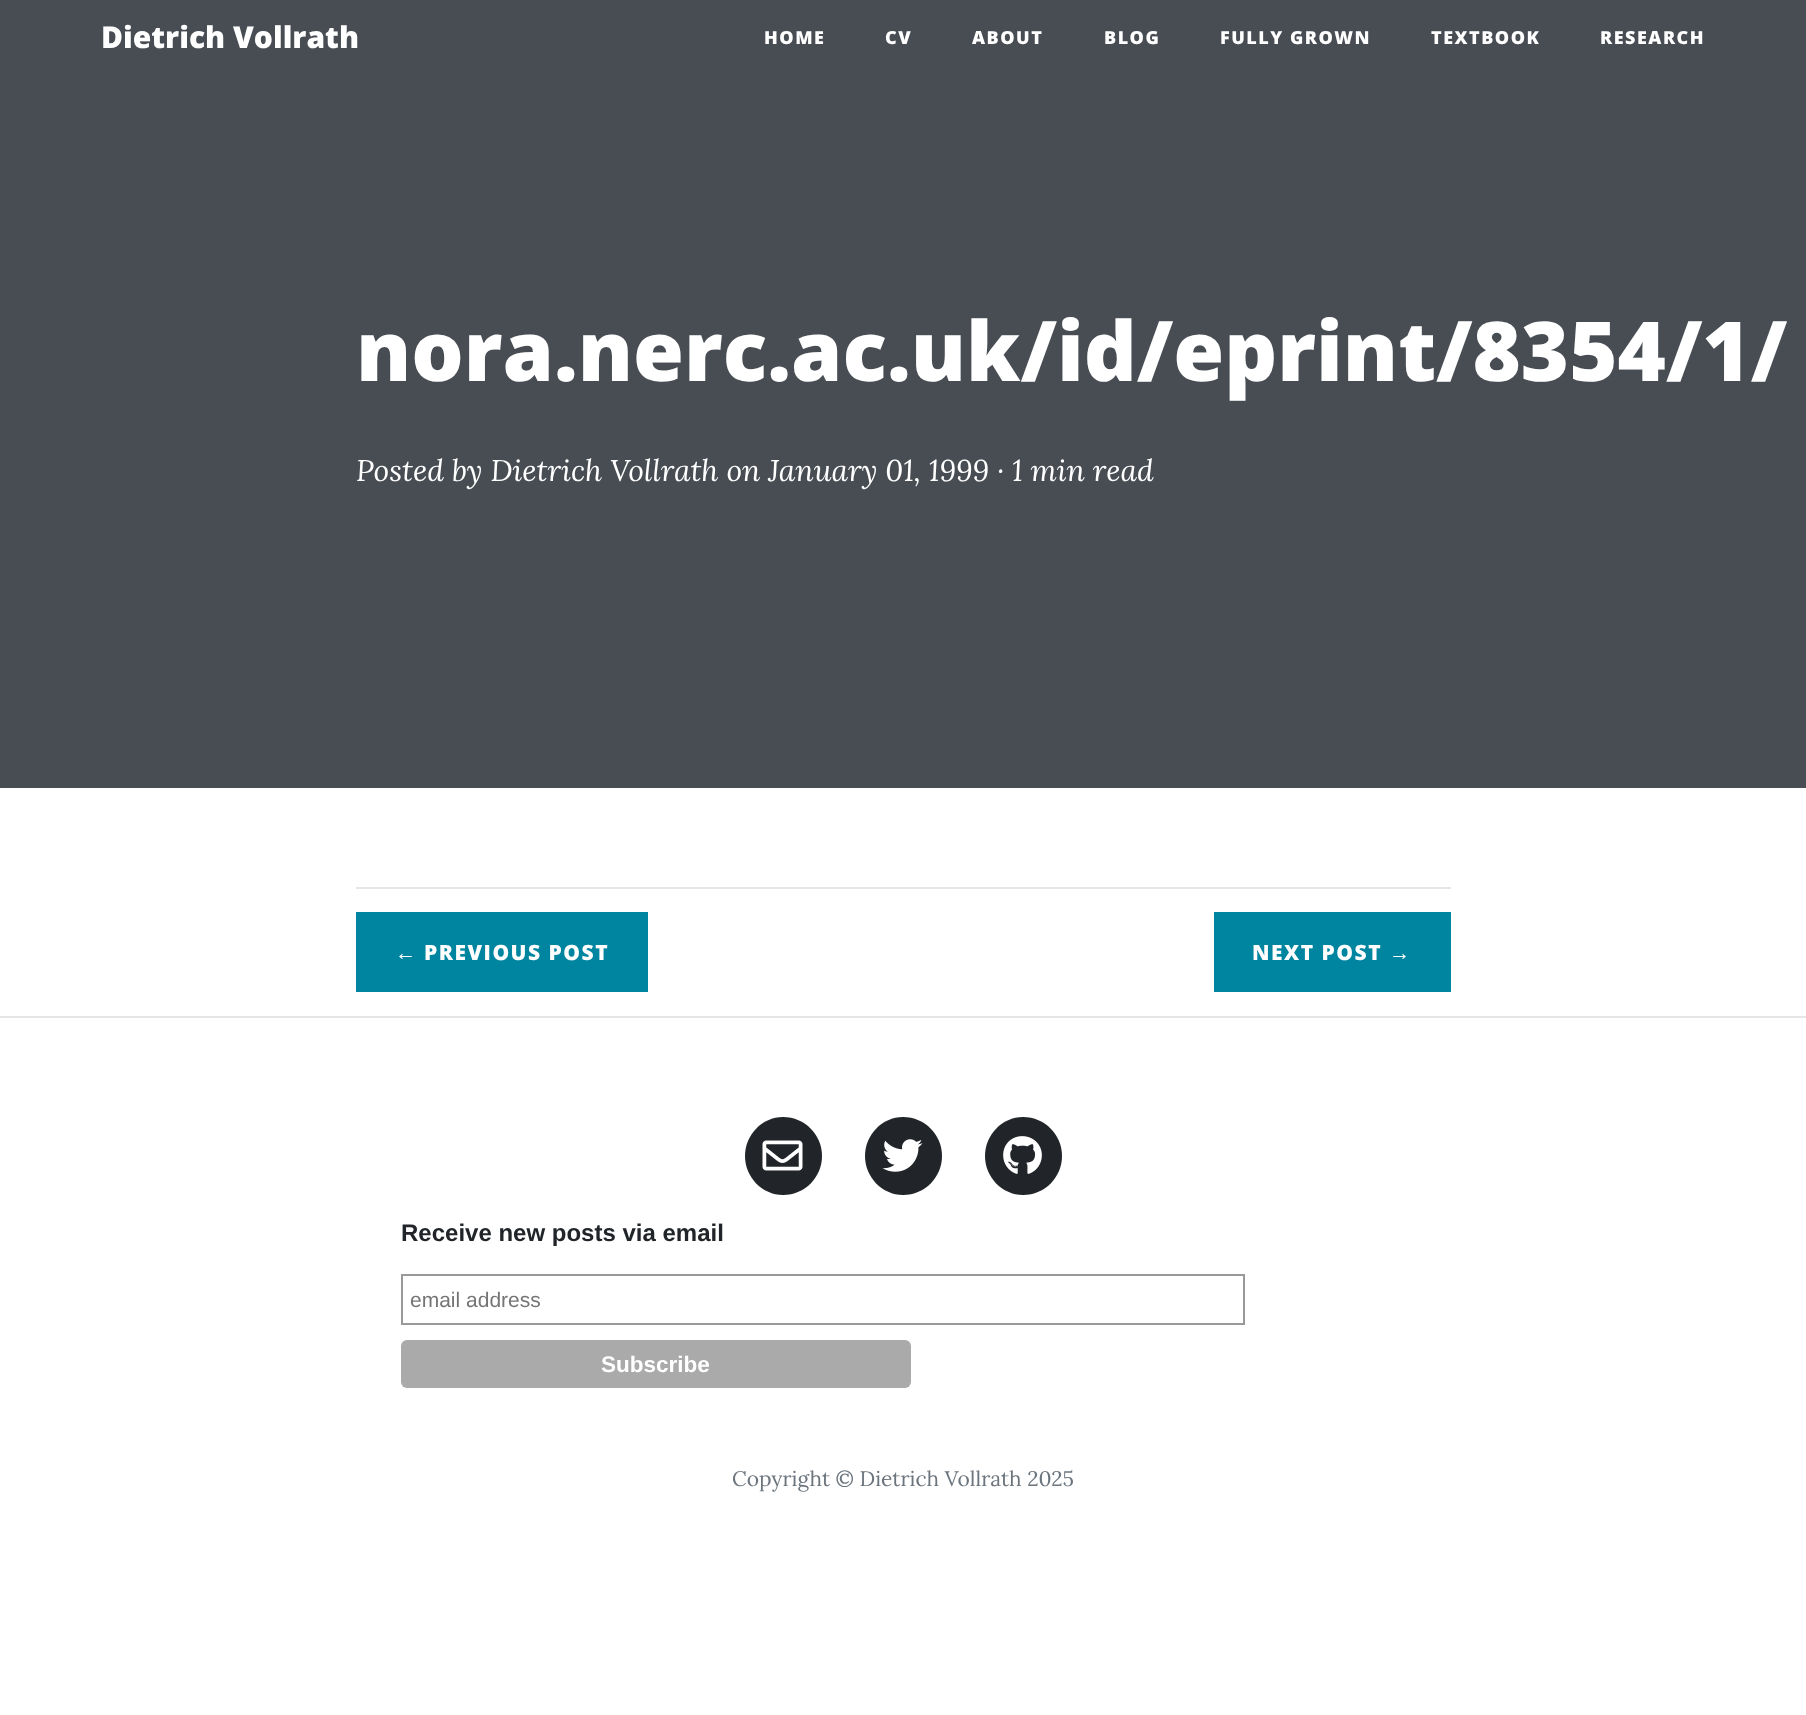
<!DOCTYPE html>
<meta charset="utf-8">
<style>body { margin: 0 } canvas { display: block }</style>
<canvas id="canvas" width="1806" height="1715"></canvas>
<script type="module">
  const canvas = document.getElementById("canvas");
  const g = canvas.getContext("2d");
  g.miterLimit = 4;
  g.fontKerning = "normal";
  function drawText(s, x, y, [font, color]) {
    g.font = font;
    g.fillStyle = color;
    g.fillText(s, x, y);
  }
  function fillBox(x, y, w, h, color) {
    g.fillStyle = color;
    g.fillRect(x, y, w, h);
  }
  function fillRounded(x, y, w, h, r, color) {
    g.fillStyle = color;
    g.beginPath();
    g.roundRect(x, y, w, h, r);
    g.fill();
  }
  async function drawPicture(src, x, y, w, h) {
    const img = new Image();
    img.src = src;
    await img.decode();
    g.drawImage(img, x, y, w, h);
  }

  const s1 = ["800 30px Open Sans", "#FFFFFF"];
  const s2 = ["800 18px Open Sans", "#FFFFFF"];
  const s3 = ["800 82.5px Open Sans", "#FFFFFF"];
  const s4 = ["italic 30px Lora", "#FFFFFF"];
  const s5 = ["bold 21px Liberation Sans", "#FFFFFF"];
  const s6 = ["800 21px Open Sans", "#FFFFFF"];
  const s7 = ["bold 24px Liberation Sans", "#212529"];
  const s8 = ["21px Liberation Sans", "#757575"];
  const s9 = ["bold 22.5px Liberation Sans", "#FFFFFF"];
  const s10 = ["21px Lora", "#6C757D"];

  fillBox(0, 0, 1806, 1715, "#FFFFFF");
  fillBox(0, 0, 1806, 788, "#484D54");
  drawText("Dietrich Vollrath", 101, 48, s1);
  g.letterSpacing = "1.5px";
  drawText("HOME", 764, 44, s2);
  drawText("CV", 885, 44, s2);
  drawText("ABOUT", 972, 44, s2);
  drawText("BLOG", 1104, 44, s2);
  drawText("FULLY GROWN", 1220, 44, s2);
  drawText("TEXTBOOK", 1431, 44, s2);
  drawText("RESEARCH", 1600, 44, s2);
  g.letterSpacing = "0px";
  drawText("nora.nerc.ac.uk/id/eprint/8354/1/", 356, 381, s3);
  drawText("Posted by Dietrich Vollrath on January 01, 1999 · 1 min read", 356, 481, s4);
  fillBox(356, 887, 1095, 2, "#E6E6E6");
  fillBox(356, 912, 292, 80, "#0085A1");
  g.letterSpacing = "1.5px";
  drawText("←", 395, 960, s5);
  drawText("PREVIOUS POST", 424, 960, s6);
  fillBox(1214, 912, 237, 80, "#0085A1");
  drawText("NEXT POST", 1252, 960, s6);
  drawText("→", 1389, 960, s5);
  fillBox(0, 1016, 1806, 2, "#E6E6E6");
  g.fillStyle = "#212529";
  g.beginPath();
  g.moveTo(783, 1117);
  g.bezierCurveTo(762, 1117, 745, 1135, 745, 1156);
  g.bezierCurveTo(745, 1177, 762, 1195, 783, 1195);
  g.bezierCurveTo(805, 1195, 822, 1177, 822, 1156);
  g.bezierCurveTo(822, 1135, 805, 1117, 783, 1117);
  g.closePath();
  g.fill();
  await drawPicture("pic1.png", 762, 1140, 41, 31);
  g.beginPath();
  g.moveTo(903, 1117);
  g.bezierCurveTo(882, 1117, 865, 1135, 865, 1156);
  g.bezierCurveTo(865, 1177, 882, 1195, 903, 1195);
  g.bezierCurveTo(925, 1195, 942, 1177, 942, 1156);
  g.bezierCurveTo(942, 1135, 925, 1117, 903, 1117);
  g.closePath();
  g.fill();
  await drawPicture("pic2.png", 882, 1139, 41, 33);
  g.beginPath();
  g.moveTo(1023, 1117);
  g.bezierCurveTo(1002, 1117, 985, 1135, 985, 1156);
  g.bezierCurveTo(985, 1177, 1002, 1195, 1023, 1195);
  g.bezierCurveTo(1045, 1195, 1062, 1177, 1062, 1156);
  g.bezierCurveTo(1062, 1135, 1045, 1117, 1023, 1117);
  g.closePath();
  g.fill();
  await drawPicture("pic3.png", 1003, 1136, 39, 38);
  g.letterSpacing = "0px";
  drawText("Receive new posts via email", 401, 1241, s7);
  g.strokeStyle = "#999999";
  g.lineWidth = 2;
  g.strokeRect(402, 1275, 842, 49);
  drawText("email address", 410, 1307, s8);
  fillRounded(401, 1340, 510, 48, 6, "#AAAAAA");
  drawText("Subscribe", 601, 1372, s9);
  drawText("Copyright © Dietrich Vollrath 2025", 732, 1486, s10);
</script>
